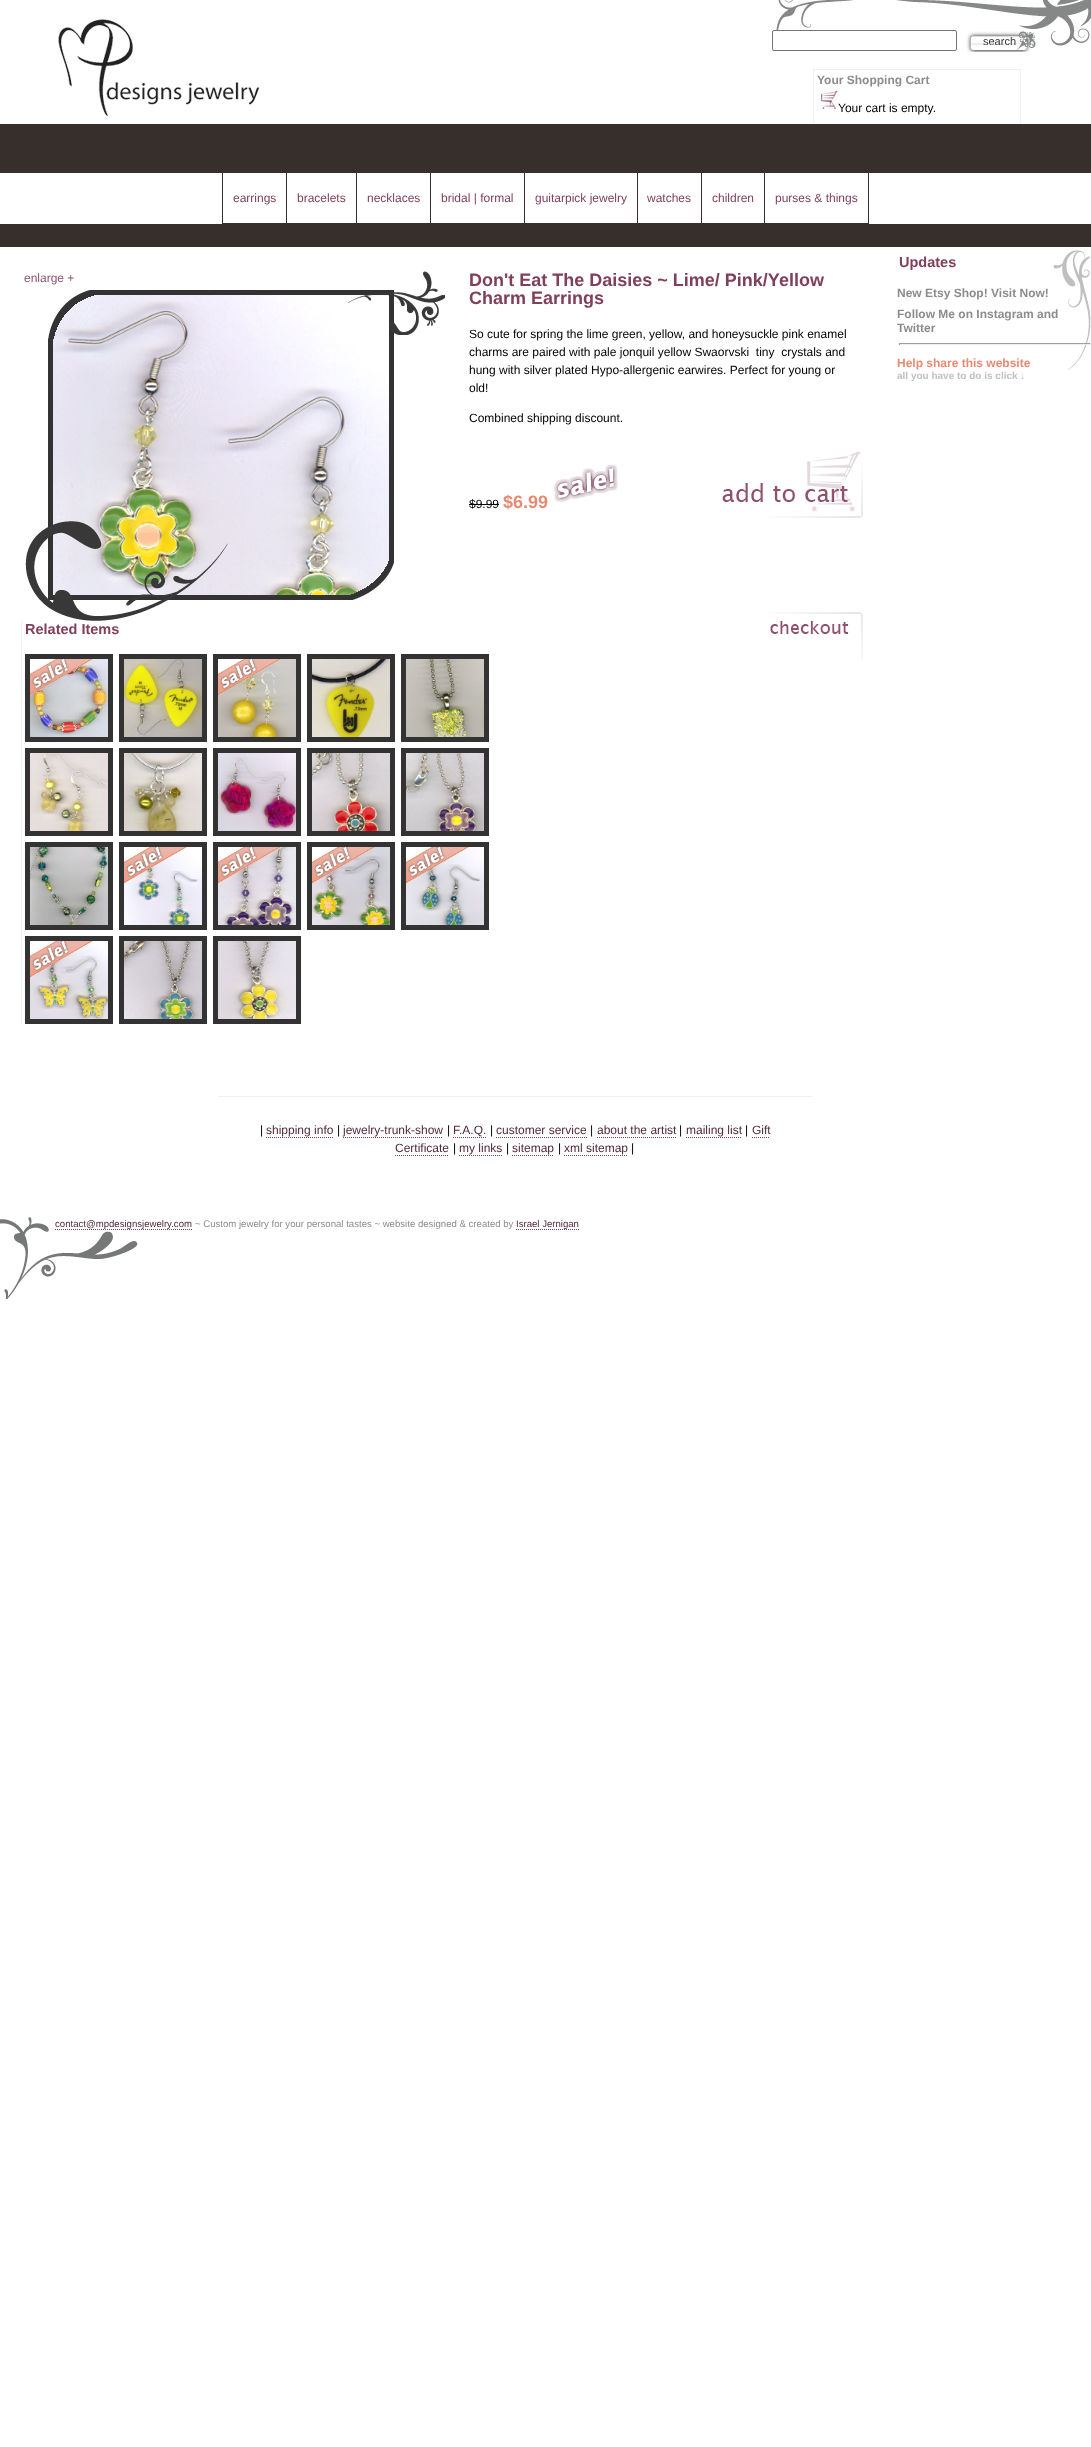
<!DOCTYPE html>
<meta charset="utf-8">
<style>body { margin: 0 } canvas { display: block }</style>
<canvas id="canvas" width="1091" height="2447"></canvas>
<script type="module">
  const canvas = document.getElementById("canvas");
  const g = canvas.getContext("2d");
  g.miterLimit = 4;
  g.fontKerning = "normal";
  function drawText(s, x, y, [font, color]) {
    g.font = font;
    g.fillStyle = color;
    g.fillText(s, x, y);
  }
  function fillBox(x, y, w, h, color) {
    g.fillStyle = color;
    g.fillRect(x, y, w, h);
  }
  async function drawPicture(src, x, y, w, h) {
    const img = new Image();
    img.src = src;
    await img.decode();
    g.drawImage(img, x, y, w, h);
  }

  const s1 = ["11px Liberation Sans", "#333333"];
  const s2 = ["bold 12px Liberation Sans", "#8C8C8C"];
  const s3 = ["12px Liberation Sans", "#000000"];
  const s4 = ["12px Liberation Sans", "#80405C"];
  const s5 = ["12px Liberation Sans", "#90516E"];
  const s6 = ["bold 18px Liberation Sans", "#80405C"];
  const s7 = ["bold 18px Liberation Sans", "#E68A73"];
  const s8 = ["bold 14.5px Liberation Sans", "#80405C"];
  const s9 = ["bold 12px Liberation Sans", "#E68A73"];
  const s10 = ["bold 10px Liberation Sans", "#C1C1C1"];
  const s11 = ["12px Liberation Sans", "#51293A"];
  const s12 = ["9.6px Liberation Sans", "#51293A"];
  const s13 = ["9.6px Liberation Sans", "#8C8C8C"];

  fillBox(0, 0, 1091, 2447, "#FFFFFF");
  await drawPicture("pic1.png", 776, 0, 315, 46);
  await drawPicture("pic2.png", 58, 19, 202, 98);
  g.beginPath();
  g.roundRect(772.5, 30.5, 184, 20, 1.5);
  g.fill();
  g.strokeStyle = "#767676";
  g.stroke();
  await drawPicture("pic3.png", 966, 31, 70, 21);
  drawText("search", 983, 45, s1);
  g.strokeStyle = "#F1F1F1";
  g.strokeRect(813.5, 69.5, 207, 60);
  drawText("Your Shopping Cart", 817, 84, s2);
  await drawPicture("pic4.png", 817, 87, 21, 23);
  drawText("Your cart is empty.", 838, 112, s3);
  fillBox(0, 124, 1091, 123, "#362F2C");
  fillBox(0, 173, 1091, 51, "#FFFFFF");
  drawText("earrings", 233, 202, s4);
  fillBox(222, 223, 542, 1, "#362F2C");
  fillBox(222, 172, 1, 52, "#362F2C");
  drawText("bracelets", 297, 202, s4);
  fillBox(286, 172, 1, 52, "#362F2C");
  drawText("necklaces", 367, 202, s4);
  fillBox(356, 172, 1, 52, "#362F2C");
  drawText("bridal | formal", 441, 202, s4);
  fillBox(430, 172, 1, 52, "#362F2C");
  drawText("guitarpick jewelry", 535, 202, s4);
  fillBox(524, 172, 1, 52, "#362F2C");
  drawText("watches", 647, 202, s4);
  fillBox(637, 172, 1, 52, "#362F2C");
  drawText("children", 712, 202, s4);
  fillBox(701, 172, 1, 52, "#362F2C");
  g.strokeStyle = "#362F2C";
  g.strokeRect(764.5, 172.5, 104, 51);
  drawText("purses & things", 775, 202, s4);
  await drawPicture("pic5.png", 53, 295, 336, 300);
  g.strokeStyle = "#333333";
  g.lineWidth = 5;
  g.strokeRect(50.5, 292.5, 341, 305);
  await drawPicture("pic8.png", 53, 295, 41, 44);
  await drawPicture("pic6.png", 48, 290, 42, 49);
  await drawPicture("pic7.png", 348, 271, 97, 64);
  await drawPicture("pic9.png", 25, 521, 203, 100);
  await drawPicture("pic10.png", 351, 561, 38, 34);
  await drawPicture("pic11.png", 352, 562, 42, 38);
  drawText("enlarge +", 24, 282, s5);
  drawText("Don't Eat The Daisies ~ Lime/ Pink/Yellow", 469, 286, s6);
  drawText("Charm Earrings", 469, 304, s6);
  drawText("So cute for spring the lime green, yellow, and honeysuckle pink enamel", 469, 338, s3);
  drawText("charms are paired with pale jonquil yellow Swaorvski  tiny  crystals and", 469, 356, s3);
  drawText("hung with silver plated Hypo-allergenic earwires. Perfect for young or", 469, 374, s3);
  drawText("old!", 469, 392, s3);
  drawText("Combined shipping discount.", 469, 422, s3);
  drawText("$9.99", 469, 508, s3);
  fillBox(469, 504, 30, 1, "#000000");
  drawText("$6.99", 503, 508, s7);
  await drawPicture("pic12.png", 554, 464, 64, 38);
  await drawPicture("pic13.png", 722, 451, 141, 67);
  fillBox(21, 621, 1, 403, "#F1F1F1");
  drawText("Related Items", 25, 634, s8);
  await drawPicture("pic14.png", 30, 659, 78, 78);
  g.strokeRect(27.5, 656.5, 83, 83);
  await drawPicture("pic15.png", 30, 659, 63, 37);
  await drawPicture("pic16.png", 124, 659, 78, 78);
  g.strokeRect(121.5, 656.5, 83, 83);
  await drawPicture("pic17.png", 218, 659, 78, 78);
  g.strokeRect(215.5, 656.5, 83, 83);
  await drawPicture("pic18.png", 218, 659, 63, 37);
  await drawPicture("pic19.png", 312, 659, 78, 78);
  g.strokeRect(309.5, 656.5, 83, 83);
  await drawPicture("pic20.png", 406, 659, 78, 78);
  g.strokeRect(403.5, 656.5, 83, 83);
  await drawPicture("pic21.png", 30, 753, 78, 78);
  g.strokeRect(27.5, 750.5, 83, 83);
  await drawPicture("pic22.png", 124, 753, 78, 78);
  g.strokeRect(121.5, 750.5, 83, 83);
  await drawPicture("pic23.png", 218, 753, 78, 78);
  g.strokeRect(215.5, 750.5, 83, 83);
  await drawPicture("pic24.png", 312, 753, 78, 78);
  g.strokeRect(309.5, 750.5, 83, 83);
  await drawPicture("pic25.png", 406, 753, 78, 78);
  g.strokeRect(403.5, 750.5, 83, 83);
  await drawPicture("pic26.png", 30, 847, 78, 78);
  g.strokeRect(27.5, 844.5, 83, 83);
  await drawPicture("pic27.png", 124, 847, 78, 78);
  g.strokeRect(121.5, 844.5, 83, 83);
  await drawPicture("pic28.png", 124, 847, 63, 37);
  await drawPicture("pic29.png", 218, 847, 78, 78);
  g.strokeRect(215.5, 844.5, 83, 83);
  await drawPicture("pic30.png", 218, 847, 63, 37);
  await drawPicture("pic31.png", 312, 847, 78, 78);
  g.strokeRect(309.5, 844.5, 83, 83);
  await drawPicture("pic32.png", 312, 847, 63, 37);
  await drawPicture("pic33.png", 406, 847, 78, 78);
  g.strokeRect(403.5, 844.5, 83, 83);
  await drawPicture("pic34.png", 406, 847, 63, 37);
  await drawPicture("pic35.png", 30, 941, 78, 78);
  g.strokeRect(27.5, 938.5, 83, 83);
  await drawPicture("pic36.png", 30, 941, 63, 37);
  await drawPicture("pic37.png", 124, 941, 78, 78);
  g.strokeRect(121.5, 938.5, 83, 83);
  await drawPicture("pic38.png", 218, 941, 78, 78);
  g.strokeRect(215.5, 938.5, 83, 83);
  await drawPicture("pic39.png", 770, 612, 93, 48);
  await drawPicture("pic40.png", 1053, 250, 38, 120);
  drawText("Updates", 899, 267, s8);
  drawText("New Etsy Shop! Visit Now!", 897, 297, s2);
  drawText("Follow Me on Instagram and", 897, 318, s2);
  drawText("Twitter", 897, 332, s2);
  fillBox(899, 343, 192, 1, "#9F9F9F");
  fillBox(1090, 343, 1, 2, "#EEEEEE");
  fillBox(899, 344, 192, 1, "#EEEEEE");
  fillBox(899, 343, 1, 2, "#9F9F9F");
  drawText("Help share this website", 897, 367, s9);
  drawText("all you have to do is click ↓", 897, 379, s10);
  fillBox(218, 1096, 594, 1, "#F1F1F1");
  drawText("|", 260, 1134, s3);
  drawText("shipping info", 266, 1134, s11);
  g.beginPath();
  g.moveTo(266, 1137.5);
  g.lineTo(333, 1137.5);
  g.strokeStyle = "#80405C";
  g.lineWidth = 1;
  g.setLineDash([1, 1]);
  g.stroke();
  drawText("|", 337, 1134, s3);
  drawText("jewelry-trunk-show", 343, 1134, s11);
  g.beginPath();
  g.moveTo(343, 1137.5);
  g.lineTo(443, 1137.5);
  g.stroke();
  drawText("|", 447, 1134, s3);
  drawText("F.A.Q.", 453, 1134, s11);
  g.beginPath();
  g.moveTo(453, 1137.5);
  g.lineTo(486, 1137.5);
  g.stroke();
  drawText("|", 490, 1134, s3);
  drawText("customer service", 496, 1134, s11);
  g.beginPath();
  g.moveTo(496, 1137.5);
  g.lineTo(587, 1137.5);
  g.stroke();
  drawText("|", 590, 1134, s3);
  drawText("about the artist", 597, 1134, s11);
  g.beginPath();
  g.moveTo(597, 1137.5);
  g.lineTo(676, 1137.5);
  g.stroke();
  drawText("|", 679, 1134, s3);
  drawText("mailing list", 686, 1134, s11);
  g.beginPath();
  g.moveTo(686, 1137.5);
  g.lineTo(742, 1137.5);
  g.stroke();
  drawText("|", 745, 1134, s3);
  drawText("Gift", 752, 1134, s11);
  g.beginPath();
  g.moveTo(752, 1137.5);
  g.lineTo(770, 1137.5);
  g.stroke();
  drawText("Certificate", 395, 1152, s11);
  g.beginPath();
  g.moveTo(395, 1155.5);
  g.lineTo(449, 1155.5);
  g.stroke();
  drawText("|", 453, 1152, s3);
  drawText("my links", 459, 1152, s11);
  g.beginPath();
  g.moveTo(459, 1155.5);
  g.lineTo(502, 1155.5);
  g.stroke();
  drawText("|", 506, 1152, s3);
  drawText("sitemap", 512, 1152, s11);
  g.beginPath();
  g.moveTo(512, 1155.5);
  g.lineTo(554, 1155.5);
  g.stroke();
  drawText("|", 558, 1152, s3);
  drawText("xml sitemap", 564, 1152, s11);
  g.beginPath();
  g.moveTo(564, 1155.5);
  g.lineTo(628, 1155.5);
  g.stroke();
  drawText("|", 631, 1152, s3);
  await drawPicture("pic41.png", 0, 1217, 138, 82);
  drawText("contact@mpdesignsjewelry.com", 55, 1227, s12);
  g.beginPath();
  g.moveTo(55, 1229.5);
  g.lineTo(192, 1229.5);
  g.stroke();
  drawText("~ Custom jewelry for your personal tastes ~ website designed & created by", 195, 1227, s13);
  drawText("Israel Jernigan", 516, 1227, s12);
  g.beginPath();
  g.moveTo(516, 1229.5);
  g.lineTo(579, 1229.5);
  g.stroke();
</script>
